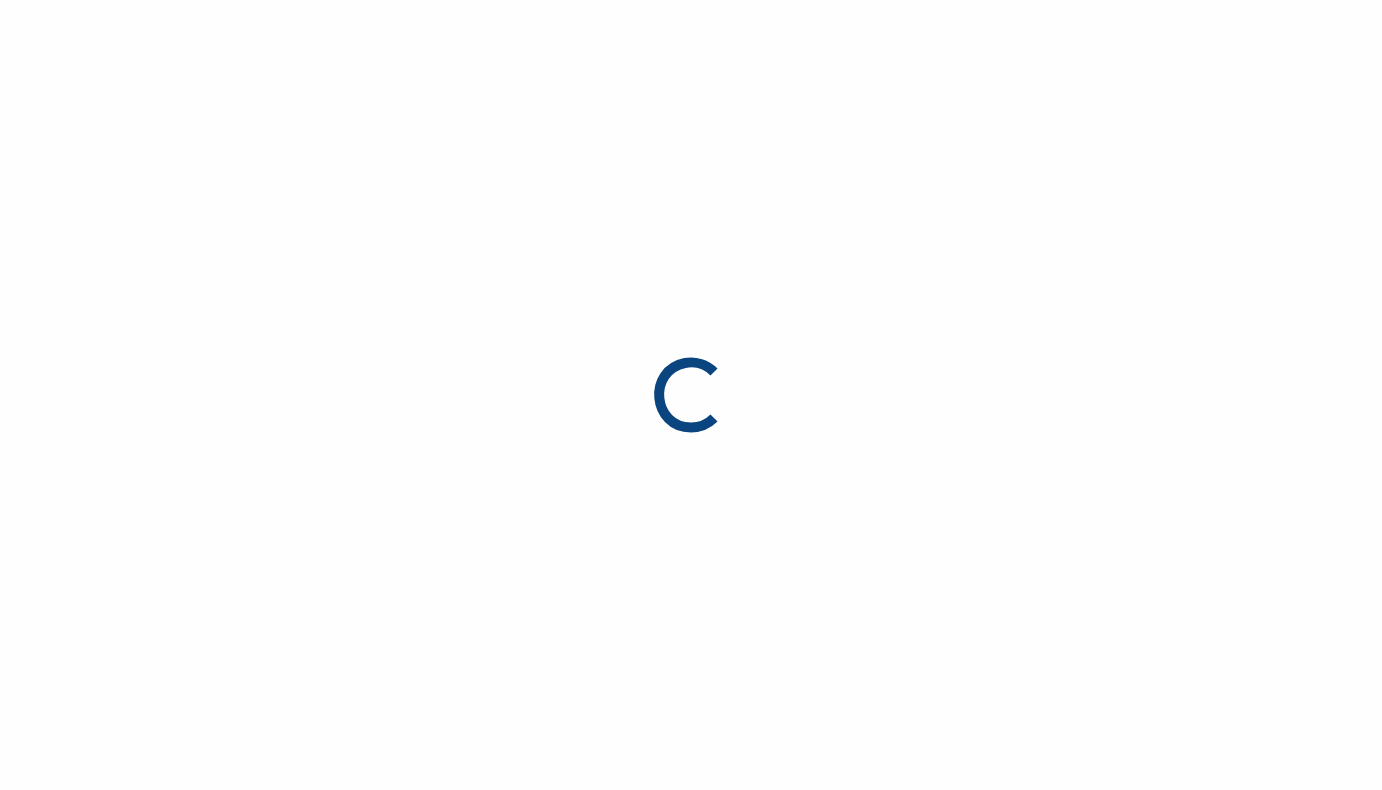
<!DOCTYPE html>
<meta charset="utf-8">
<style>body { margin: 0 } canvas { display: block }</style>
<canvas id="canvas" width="1382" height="790"></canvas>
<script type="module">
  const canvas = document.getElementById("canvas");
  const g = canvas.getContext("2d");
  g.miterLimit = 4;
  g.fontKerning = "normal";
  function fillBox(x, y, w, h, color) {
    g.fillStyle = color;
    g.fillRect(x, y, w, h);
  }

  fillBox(0, 0, 1382, 790, "#FEFEFE");
  g.beginPath();
  g.moveTo(714, 418);
  g.bezierCurveTo(708, 424, 700, 427.5, 691, 427.5);
  g.bezierCurveTo(652.5, 427.5, 647, 370.5, 685, 363);
  g.bezierCurveTo(695.5, 361, 706.5, 364.5, 714, 372);
  g.strokeStyle = "#0B457F";
  g.lineWidth = 10;
  g.stroke();
</script>
